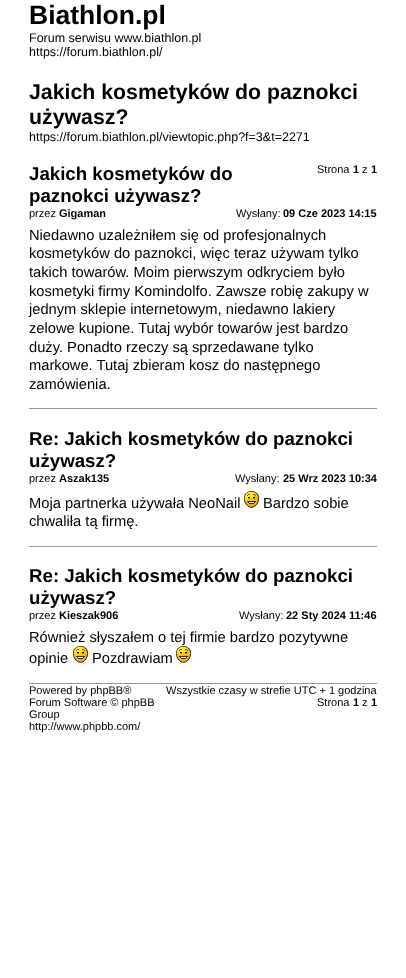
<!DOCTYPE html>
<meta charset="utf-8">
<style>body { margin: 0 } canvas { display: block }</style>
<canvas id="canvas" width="406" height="978"></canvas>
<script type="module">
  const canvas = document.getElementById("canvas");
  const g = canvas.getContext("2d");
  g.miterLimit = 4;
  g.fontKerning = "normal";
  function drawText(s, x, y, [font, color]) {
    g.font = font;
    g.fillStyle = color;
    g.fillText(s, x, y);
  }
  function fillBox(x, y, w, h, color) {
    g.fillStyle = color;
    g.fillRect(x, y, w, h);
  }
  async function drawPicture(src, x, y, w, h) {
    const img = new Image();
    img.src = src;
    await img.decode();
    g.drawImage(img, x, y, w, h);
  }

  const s1 = ["bold 26.5px Liberation Sans", "#000000"];
  const s2 = ["12.5px Liberation Sans", "#000000"];
  const s3 = ["bold 21.3px Liberation Sans", "#000000"];
  const s4 = ["11px Liberation Sans", "#000000"];
  const s5 = ["bold 11px Liberation Sans", "#000000"];
  const s6 = ["bold 18.7px Liberation Sans", "#000000"];
  const s7 = ["14.7px Liberation Sans", "#000000"];

  fillBox(0, 0, 406, 978, "#FFFFFF");
  drawText("Biathlon.pl", 29, 24, s1);
  drawText("Forum serwisu www.biathlon.pl", 29, 42, s2);
  drawText("https://forum.biathlon.pl/", 29, 56, s2);
  drawText("Jakich kosmetyków do paznokci", 29, 99, s3);
  drawText("używasz?", 29, 124, s3);
  drawText("https://forum.biathlon.pl/viewtopic.php?f=3&t=2271", 29, 141, s2);
  drawText("Strona", 317, 173, s4);
  drawText("1", 353, 173, s5);
  drawText("z", 362, 173, s4);
  drawText("1", 371, 173, s5);
  drawText("Jakich kosmetyków do", 29, 180, s6);
  drawText("paznokci używasz?", 29, 202, s6);
  drawText("przez", 29, 217, s4);
  drawText("Gigaman", 59, 217, s5);
  drawText("Wysłany:", 236, 217, s4);
  drawText("09 Cze 2023 14:15", 283, 217, s5);
  drawText("Niedawno uzależniłem się od profesjonalnych", 29, 240, s7);
  drawText("kosmetyków do paznokci, więc teraz używam tylko", 29, 258, s7);
  drawText("takich towarów. Moim pierwszym odkryciem było", 29, 277, s7);
  drawText("kosmetyki firmy Komindolfo. Zawsze robię zakupy w", 29, 296, s7);
  drawText("jednym sklepie internetowym, niedawno lakiery", 29, 314, s7);
  drawText("zelowe kupione. Tutaj wybór towarów jest bardzo", 29, 333, s7);
  drawText("duży. Ponadto rzeczy są sprzedawane tylko", 29, 352, s7);
  drawText("markowe. Tutaj zbieram kosz do następnego", 29, 370, s7);
  drawText("zamówienia.", 29, 389, s7);
  fillBox(29, 408, 348, 1, "#999999");
  drawText("Re: Jakich kosmetyków do paznokci", 29, 445, s6);
  drawText("używasz?", 29, 467, s6);
  drawText("przez", 29, 482, s4);
  drawText("Aszak135", 59, 482, s5);
  drawText("Wysłany:", 235, 482, s4);
  drawText("25 Wrz 2023 10:34", 283, 482, s5);
  drawText("Moja partnerka używała NeoNail", 29, 508, s7);
  await drawPicture("pic1.png", 244, 491, 15, 17);
  drawText("Bardzo sobie", 263, 508, s7);
  drawText("chwaliła tą firmę.", 29, 526, s7);
  fillBox(29, 546, 348, 1, "#999999");
  drawText("Re: Jakich kosmetyków do paznokci", 29, 582, s6);
  drawText("używasz?", 29, 604, s6);
  drawText("przez", 29, 619, s4);
  drawText("Kieszak906", 59, 619, s5);
  drawText("Wysłany:", 239, 619, s4);
  drawText("22 Sty 2024 11:46", 286, 619, s5);
  drawText("Również słyszałem o tej firmie bardzo pozytywne", 29, 642, s7);
  drawText("opinie", 29, 663, s7);
  await drawPicture("pic1.png", 73, 646, 15, 17);
  drawText("Pozdrawiam", 92, 663, s7);
  await drawPicture("pic1.png", 176, 646, 15, 17);
  fillBox(29, 683, 348, 1, "#999999");
  drawText("Powered by phpBB®", 29, 694, s4);
  drawText("Forum Software © phpBB", 29, 706, s4);
  drawText("Group", 29, 718, s4);
  drawText("http://www.phpbb.com/", 29, 730, s4);
  drawText("Wszystkie czasy w strefie UTC + 1 godzina", 166, 694, s4);
  drawText("Strona", 317, 706, s4);
  drawText("1", 353, 706, s5);
  drawText("z", 362, 706, s4);
  drawText("1", 371, 706, s5);
</script>
